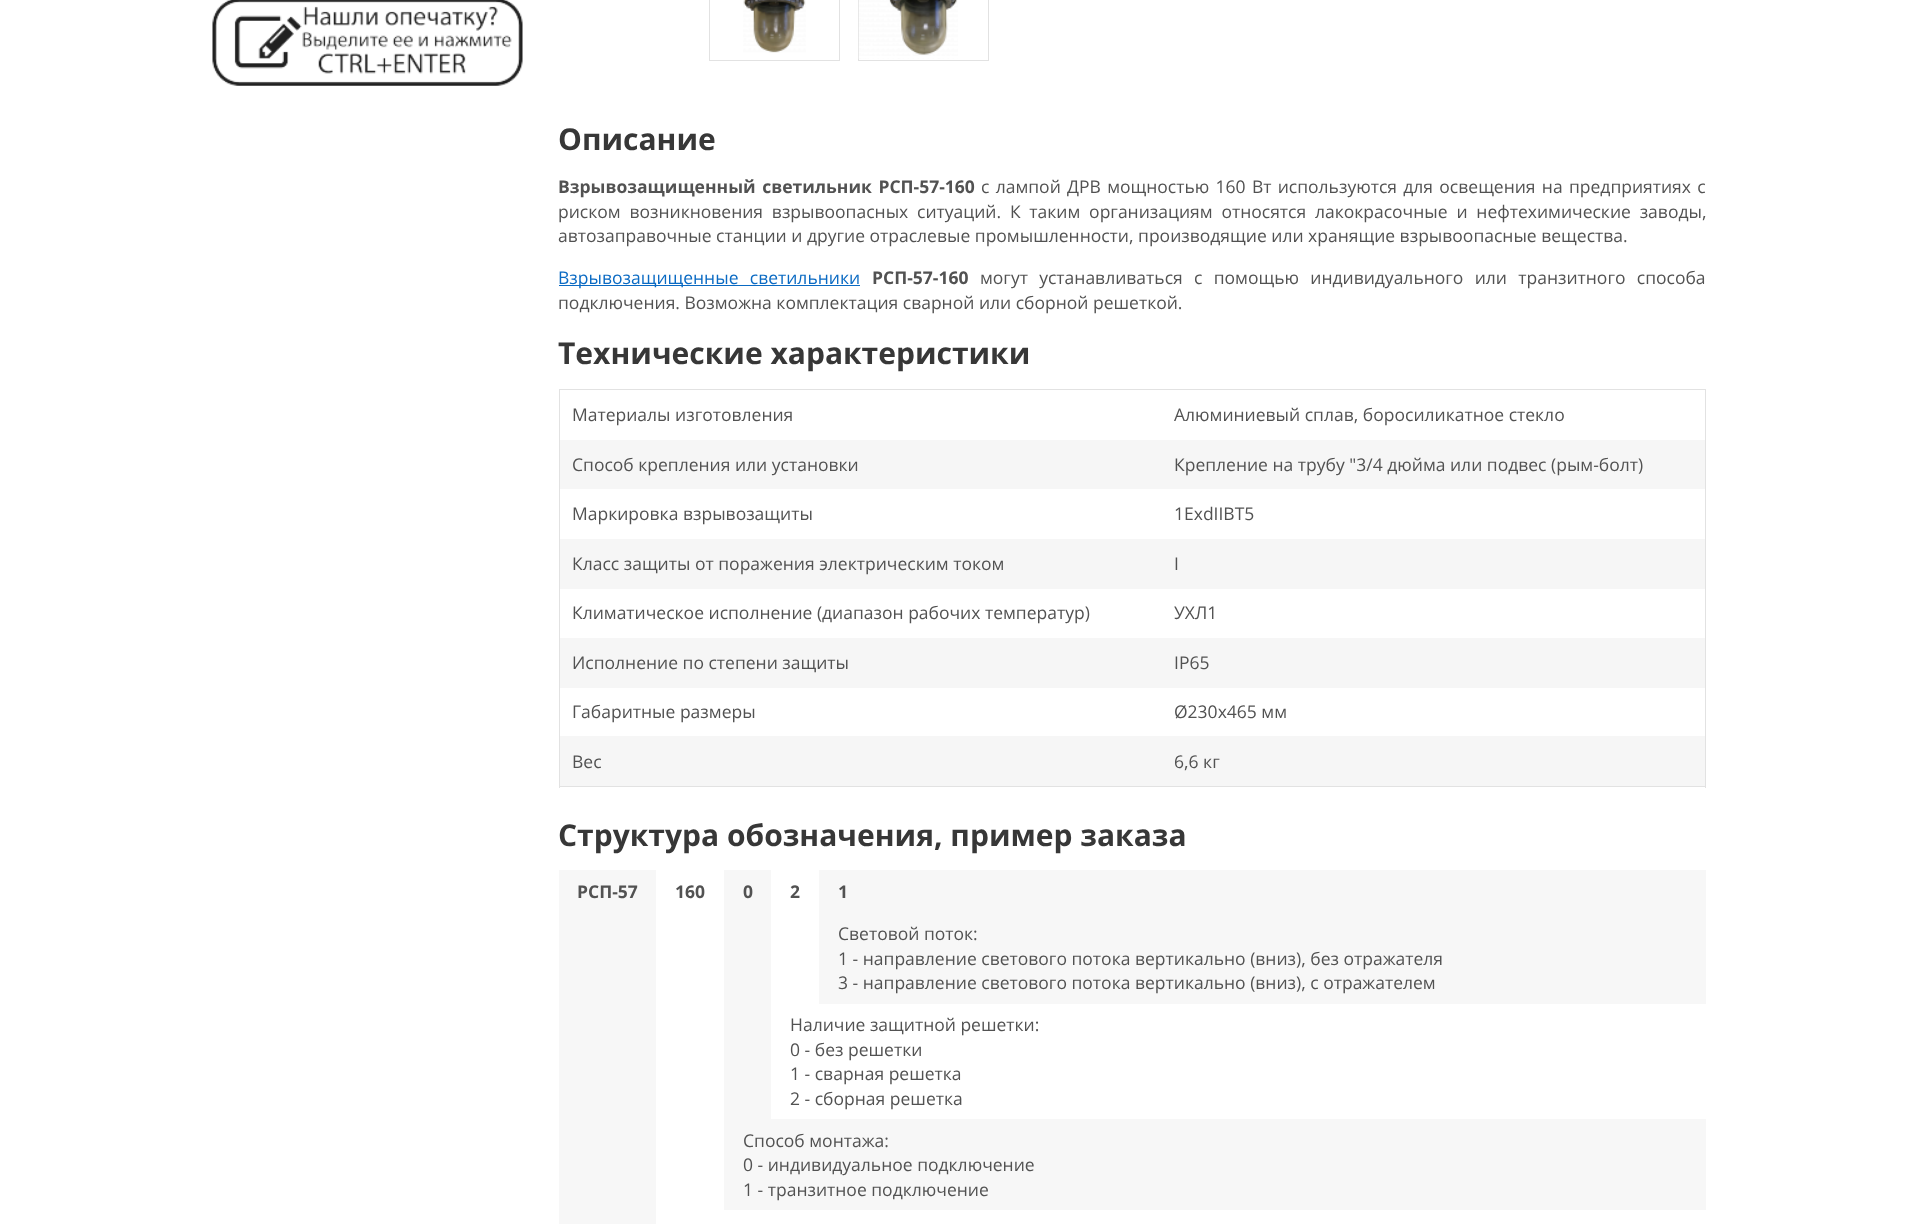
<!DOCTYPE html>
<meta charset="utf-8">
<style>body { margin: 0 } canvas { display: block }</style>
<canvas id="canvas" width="1911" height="1224"></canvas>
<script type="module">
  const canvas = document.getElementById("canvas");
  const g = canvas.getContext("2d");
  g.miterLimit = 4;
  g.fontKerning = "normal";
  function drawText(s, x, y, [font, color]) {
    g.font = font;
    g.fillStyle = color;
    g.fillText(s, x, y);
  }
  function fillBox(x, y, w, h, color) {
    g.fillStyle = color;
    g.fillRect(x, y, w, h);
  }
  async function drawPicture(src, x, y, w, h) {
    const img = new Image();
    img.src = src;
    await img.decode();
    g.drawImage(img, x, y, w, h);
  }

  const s1 = ["bold 30px Open Sans", "#373737"];
  const s2 = ["bold 17.5px Open Sans", "#525252"];
  const s3 = ["17.5px Open Sans", "#525252"];
  const s4 = ["17.5px Open Sans", "#0A6AC3"];

  fillBox(0, 0, 1911, 1224, "#FFFFFF");
  await drawPicture("pic1.png", 212, 0, 311, 86);
  g.strokeStyle = "#E2E2E2";
  g.strokeRect(709.5, -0.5, 130, 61);
  await drawPicture("pic2.png", 743, 0, 63, 53);
  g.strokeRect(858.5, -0.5, 130, 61);
  await drawPicture("pic3.png", 858, 0, 100, 59);
  drawText("Описание", 558, 150, s1);
  g.wordSpacing = "2px";
  drawText("Взрывозащищенный светильник РСП-57-160", 558, 193, s2);
  g.wordSpacing = "1.75px";
  drawText("с лампой ДРВ мощностью 160 Вт используются для освещения на предприятиях с", 981, 193, s3);
  g.wordSpacing = "4.25px";
  drawText("риском возникновения взрывоопасных ситуаций. К таким организациям относятся лакокрасочные и нефтехимические заводы,", 558, 218, s3);
  g.wordSpacing = "0px";
  drawText("автозаправочные станции и другие отраслевые промышленности, производящие или хранящие взрывоопасные вещества.", 558, 242, s3);
  fillBox(559, 285, 301, 1, "#0A6AC3");
  g.wordSpacing = "6.75px";
  drawText("Взрывозащищенные светильники", 558, 284, s4);
  g.wordSpacing = "0px";
  drawText("РСП-57-160", 872, 284, s2);
  g.wordSpacing = "6.75px";
  drawText("могут устанавливаться с помощью индивидуального или транзитного способа", 980, 284, s3);
  g.wordSpacing = "0px";
  drawText("подключения. Возможна комплектация сварной или сборной решеткой.", 558, 309, s3);
  drawText("Технические характеристики", 558, 364, s1);
  fillBox(559, 389, 1147, 1, "#E2E2E2");
  fillBox(1705, 389, 1, 399, "#E2E2E2");
  fillBox(559, 786, 1147, 1, "#E2E2E2");
  fillBox(559, 389, 1, 399, "#E2E2E2");
  drawText("Материалы изготовления", 572, 421, s3);
  drawText("Алюминиевый сплав, боросиликатное стекло", 1174, 421, s3);
  fillBox(560, 440, 1145, 49, "#F6F6F6");
  drawText("Способ крепления или установки", 572, 471, s3);
  drawText("Крепление на трубу \"3/4 дюйма или подвес (рым-болт)", 1174, 471, s3);
  drawText("Маркировка взрывозащиты", 572, 520, s3);
  drawText("1ExdIIBT5", 1174, 520, s3);
  fillBox(560, 539, 1145, 50, "#F6F6F6");
  drawText("Класс защиты от поражения электрическим током", 572, 570, s3);
  drawText("I", 1174, 570, s3);
  drawText("Климатическое исполнение (диапазон рабочих температур)", 572, 619, s3);
  drawText("УХЛ1", 1174, 619, s3);
  fillBox(560, 638, 1145, 50, "#F6F6F6");
  drawText("Исполнение по степени защиты", 572, 669, s3);
  drawText("IP65", 1174, 669, s3);
  drawText("Габаритные размеры", 572, 718, s3);
  drawText("Ø230х465 мм", 1174, 718, s3);
  fillBox(560, 736, 1145, 50, "#F6F6F6");
  drawText("Вес", 572, 768, s3);
  drawText("6,6 кг", 1174, 768, s3);
  drawText("Структура обозначения, пример заказа", 558, 846, s1);
  fillBox(559, 870, 97, 354, "#F7F7F7");
  drawText("РСП-57", 577, 898, s2);
  drawText("160", 675, 898, s2);
  fillBox(724, 870, 982, 340, "#F7F7F7");
  drawText("0", 743, 898, s2);
  fillBox(771, 870, 935, 249, "#FFFFFF");
  drawText("2", 790, 898, s2);
  fillBox(819, 870, 887, 134, "#F7F7F7");
  drawText("1", 838, 898, s2);
  drawText("Световой поток:", 838, 940, s3);
  drawText("1 - направление светового потока вертикально (вниз), без отражателя", 838, 965, s3);
  drawText("3 - направление светового потока вертикально (вниз), с отражателем", 838, 989, s3);
  drawText("Наличие защитной решетки:", 790, 1031, s3);
  drawText("0 - без решетки", 790, 1056, s3);
  drawText("1 - сварная решетка", 790, 1080, s3);
  drawText("2 - сборная решетка", 790, 1105, s3);
  drawText("Способ монтажа:", 743, 1147, s3);
  drawText("0 - индивидуальное подключение", 743, 1171, s3);
  drawText("1 - транзитное подключение", 743, 1196, s3);
</script>
